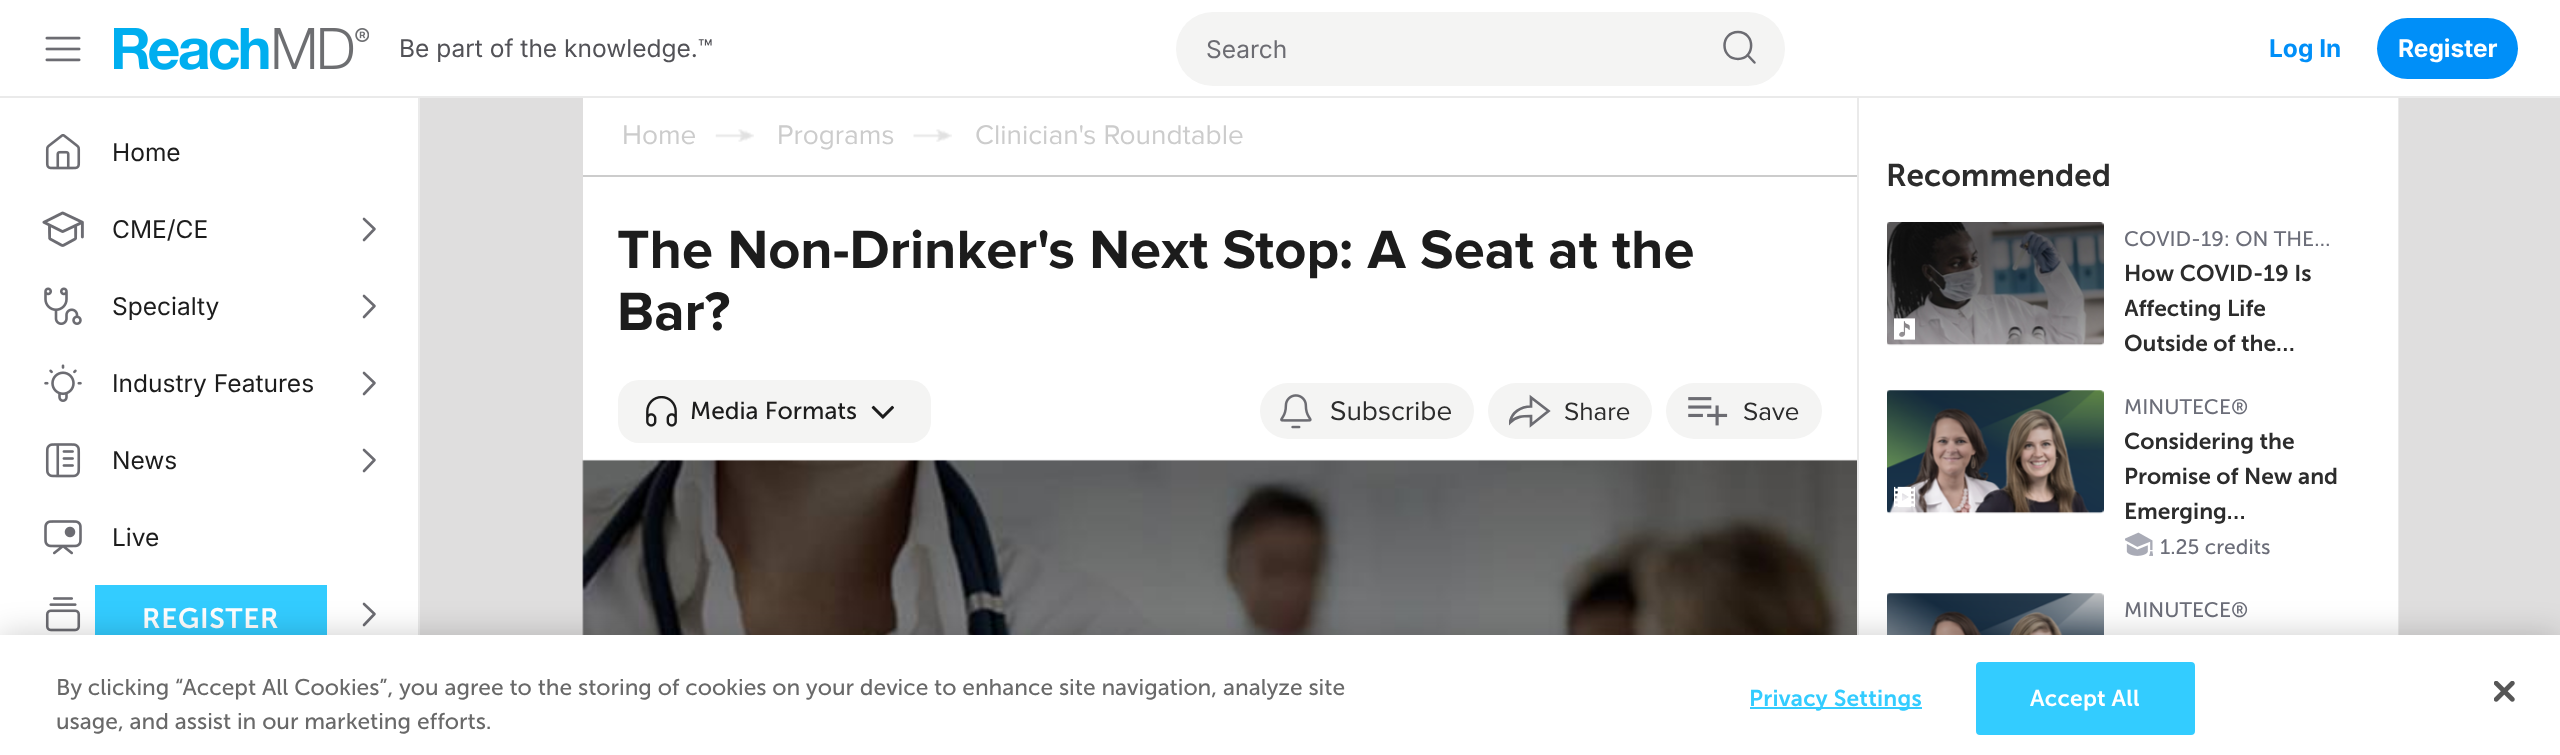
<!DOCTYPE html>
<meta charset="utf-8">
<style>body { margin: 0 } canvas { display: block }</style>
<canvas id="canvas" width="2560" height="755"></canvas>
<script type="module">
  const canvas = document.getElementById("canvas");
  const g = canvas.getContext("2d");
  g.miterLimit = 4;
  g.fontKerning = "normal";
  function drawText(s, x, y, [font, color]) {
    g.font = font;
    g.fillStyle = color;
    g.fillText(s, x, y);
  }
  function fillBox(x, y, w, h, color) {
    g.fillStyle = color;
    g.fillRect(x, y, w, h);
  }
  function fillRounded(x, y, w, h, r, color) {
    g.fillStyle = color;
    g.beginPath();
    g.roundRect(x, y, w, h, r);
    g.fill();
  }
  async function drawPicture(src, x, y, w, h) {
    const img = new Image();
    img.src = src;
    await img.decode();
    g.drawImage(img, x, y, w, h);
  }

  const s1 = ["24.5px Inter", "#525257"];
  const s2 = ["24.5px Inter", "#6C6C72"];
  const s3 = ["bold 24.5px Inter", "#008FF8"];
  const s4 = ["bold 24.5px Inter", "#FFFFFF"];
  const s5 = ["24.5px Inter", "#1C1C1C"];
  const s6 = ["28px Proxima Nova", "#CCCCCC"];
  const s7 = ["bold 56px Proxima Nova", "#1C1C1C"];
  const s8 = ["24.5px Museo Sans", "#1C1C1C"];
  const s9 = ["28px Proxima Nova", "#2C2C2C"];
  const s10 = ["26px Proxima Nova", "#2C2C2C"];
  const s11 = ["600 31.5px Museo Sans", "#2C2C2C"];
  const s12 = ["21px Museo Sans", "#6C6E79"];
  const s13 = ["600 22.75px Museo Sans", "#2C2C2C"];
  const s14 = ["600 28px Museo Sans", "#FFFFFF"];
  const s15 = ["22.75px Museo Sans", "#696969"];
  const s16 = ["600 22.75px Museo Sans", "#33CCFF"];
  const s17 = ["600 22.75px Museo Sans", "#FFFFFF"];

  fillBox(0, 0, 2560, 755, "#DFDEDE");
  fillBox(0, 0, 2560, 96, "#FFFFFF");
  fillBox(418, 96, 2, 539, "#EAEAEA");
  fillBox(2398, 96, 1, 539, "#EAEAEA");
  fillBox(1857, 96, 2, 539, "#EAEAEA");
  fillBox(0, 96, 2560, 2, "#EAEAEA");
  await drawPicture("pic1.png", 45, 36, 36, 26);
  await drawPicture("pic2.png", 114, 28, 255, 42);
  drawText("Be part of the knowledge.™", 399, 57, s1);
  g.fillStyle = "#F4F4F3";
  g.beginPath();
  g.roundRect(1176, 12, 525, 74, [37, 0, 0, 37]);
  g.fill();
  drawText("Search", 1206, 58, s2);
  g.fillStyle = "#F4F4F3";
  g.beginPath();
  g.roundRect(1701, 12, 84, 74, [0, 37, 37, 0]);
  g.fill();
  g.beginPath();
  g.moveTo(1738, 59);
  g.bezierCurveTo(1755.5, 59, 1755.5, 32, 1738, 32);
  g.bezierCurveTo(1720, 32, 1720, 59, 1738, 59);
  g.closePath();
  g.moveTo(1754.5, 62.5);
  g.lineTo(1747.5, 55);
  g.strokeStyle = "#6C6C72";
  g.lineWidth = 2.5;
  g.lineCap = "round";
  g.lineJoin = "round";
  g.stroke();
  drawText("Log In", 2269, 57, s3);
  fillRounded(2377, 18, 141, 61, 30.5, "#008FF8");
  drawText("Register", 2398, 57, s4);
  fillBox(0, 98, 418, 537, "#FFFFFF");
  await drawPicture("pic3.png", 45, 134, 36, 36);
  drawText("Home", 112, 161, s5);
  await drawPicture("pic4.png", 42, 211, 42, 36);
  drawText("CME/CE", 112, 238, s5);
  g.beginPath();
  g.moveTo(364, 240);
  g.lineTo(374.5, 229);
  g.lineTo(364, 219);
  g.lineWidth = 2.6;
  g.stroke();
  await drawPicture("pic5.png", 44, 287, 38, 38);
  drawText("Specialty", 112, 315, s5);
  g.beginPath();
  g.moveTo(364, 317);
  g.lineTo(374.5, 306);
  g.lineTo(364, 296);
  g.stroke();
  await drawPicture("pic6.png", 44, 364, 38, 38);
  drawText("Industry Features", 112, 392, s5);
  g.beginPath();
  g.moveTo(364, 394);
  g.lineTo(374.5, 383);
  g.lineTo(364, 373);
  g.stroke();
  await drawPicture("pic7.png", 45, 443, 36, 35);
  drawText("News", 112, 469, s5);
  g.beginPath();
  g.moveTo(364, 471);
  g.lineTo(374.5, 460);
  g.lineTo(364, 450);
  g.stroke();
  await drawPicture("pic8.png", 44, 520, 38, 35);
  drawText("Live", 112, 546, s5);
  await drawPicture("pic9.png", 45, 597, 36, 35);
  g.beginPath();
  g.moveTo(364, 625);
  g.lineTo(374.5, 614);
  g.lineTo(364, 604);
  g.stroke();
  fillBox(583, 98, 1274, 537, "#FFFFFF");
  fillBox(583, 175, 1274, 2, "#CCCCCC");
  drawText("Home", 622, 144, s6);
  await drawPicture("pic10.png", 715, 129, 39, 13);
  drawText("Programs", 777, 144, s6);
  await drawPicture("pic11.png", 913, 129, 39, 13);
  drawText("Clinician's Roundtable", 975, 144, s6);
  drawText("The Non-Drinker's Next Stop: A Seat at the", 617, 268, s7);
  drawText("Bar?", 617, 330, s7);
  fillRounded(618, 380, 313, 63, 21, "#F4F4F3");
  await drawPicture("pic12.png", 646, 396, 31, 31);
  drawText("Media Formats", 690, 419, s8);
  await drawPicture("pic13.png", 871, 405, 23, 14);
  fillRounded(1260, 383, 214, 56, 28, "#F4F4F3");
  await drawPicture("pic14.png", 1280, 394, 32, 35);
  drawText("Subscribe", 1330, 420, s9);
  fillRounded(1488, 383, 164, 56, 28, "#F4F4F3");
  g.save();
  g.beginPath();
  g.rect(1509, 390, 42, 42);
  g.clip();
  g.beginPath();
  g.moveTo(1531, 417.5);
  g.lineTo(1531, 416);
  g.bezierCurveTo(1523, 416, 1516, 416, 1510, 422.5);
  g.bezierCurveTo(1511.5, 412, 1521, 406.5, 1531, 406.5);
  g.lineTo(1531, 397.5);
  g.lineTo(1548.5, 411);
  g.lineTo(1531, 425);
  g.closePath();
  g.lineWidth = 2.7;
  g.lineCap = "butt";
  g.lineJoin = "miter";
  g.stroke();
  g.restore();
  drawText("Share", 1564, 420, s10);
  fillRounded(1666, 383, 156, 56, 28, "#F4F4F3");
  await drawPicture("pic15.png", 1688, 397, 40, 29);
  drawText("Save", 1743, 420, s10);
  await drawPicture("pic16.png", 582, 459, 1275, 176);
  fillBox(1859, 98, 539, 537, "#FFFFFF");
  drawText("Recommended", 1886, 186, s11);
  await drawPicture("pic17.png", 1887, 222, 217, 124);
  await drawPicture("pic18.png", 1894, 318, 21, 22);
  drawText("COVID-19: ON THE…", 2124, 246, s12);
  drawText("How COVID-19 Is", 2124, 281, s13);
  g.save();
  g.beginPath();
  g.rect(2125, 257, 217, 105);
  g.clip();
  drawText("Affecting Life", 2124, 316, s13);
  drawText("Outside of the…", 2124, 351, s13);
  g.restore();
  await drawPicture("pic19.png", 1887, 390, 217, 124);
  await drawPicture("pic20.png", 1894, 486, 21, 22);
  drawText("MINUTECE®", 2124, 414, s12);
  g.save();
  g.beginPath();
  g.rect(2125, 425, 217, 105);
  g.clip();
  drawText("Considering the", 2124, 449, s13);
  g.restore();
  drawText("Promise of New and", 2124, 484, s13);
  drawText("Emerging…", 2124, 519, s13);
  await drawPicture("pic21.png", 2125, 532, 28, 24);
  drawText("1.25 credits", 2160, 554, s12);
  await drawPicture("pic22.png", 1887, 593, 217, 42);
  drawText("MINUTECE®", 2124, 617, s12);
  fillBox(95, 585, 232, 50, "#33CCFF");
  g.letterSpacing = "0.75px";
  drawText("REGISTER", 142, 628, s14);
  g.fillStyle = "rgba(0, 0, 0, 0.2)";
  g.filter = "blur(16px)";
  g.beginPath();
  g.rect(0, 635, 2560, 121);
  g.fill();
  g.filter = "none";
  fillBox(0, 635, 2560, 120, "#FFFFFF");
  g.letterSpacing = "0px";
  drawText("By clicking “Accept All Cookies”, you agree to the storing of cookies on your device to enhance site navigation, analyze site", 56, 695, s15);
  drawText("usage, and assist in our marketing efforts.", 56, 729, s15);
  fillBox(1750, 707, 172, 2, "#33CCFF");
  g.letterSpacing = "0.25px";
  drawText("Privacy Settings", 1749, 706, s16);
  g.beginPath();
  g.roundRect(1977, 663, 217, 71, 3);
  g.fill();
  g.strokeStyle = "#33CCFF";
  g.lineWidth = 2;
  g.lineJoin = "miter";
  g.stroke();
  drawText("Accept All", 2030, 706, s17);
  await drawPicture("pic23.png", 2494, 681, 21, 21);
</script>
